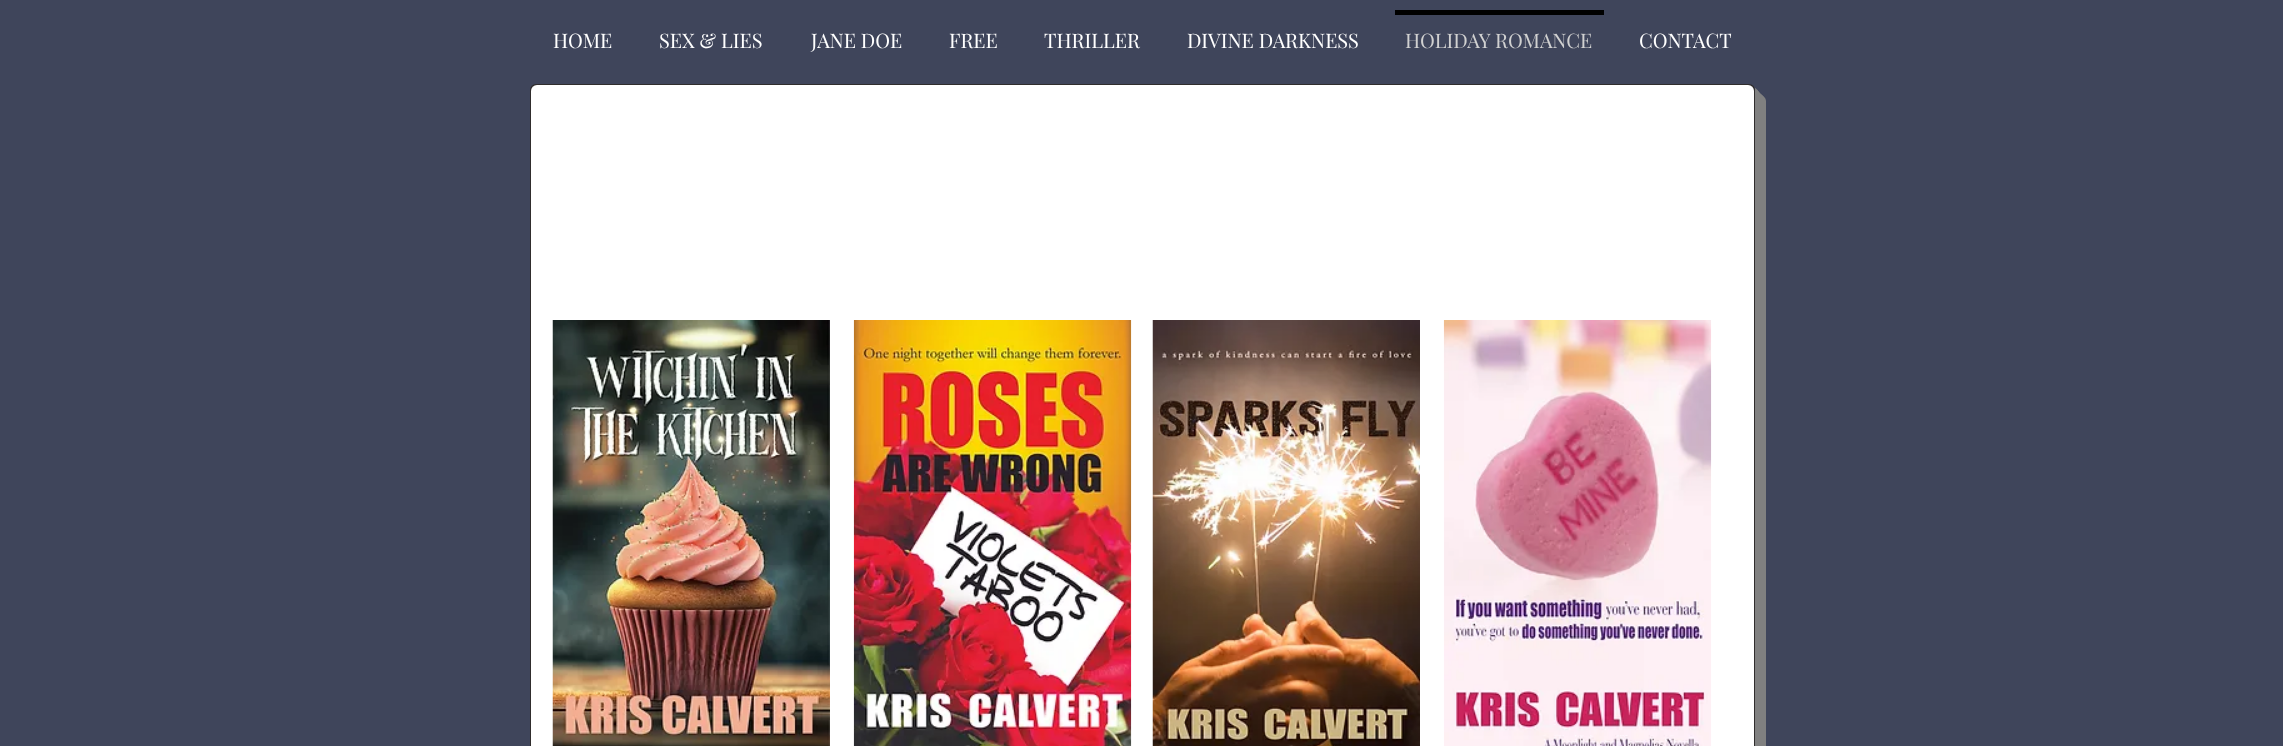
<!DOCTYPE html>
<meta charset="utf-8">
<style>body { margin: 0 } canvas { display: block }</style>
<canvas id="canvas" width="2283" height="746"></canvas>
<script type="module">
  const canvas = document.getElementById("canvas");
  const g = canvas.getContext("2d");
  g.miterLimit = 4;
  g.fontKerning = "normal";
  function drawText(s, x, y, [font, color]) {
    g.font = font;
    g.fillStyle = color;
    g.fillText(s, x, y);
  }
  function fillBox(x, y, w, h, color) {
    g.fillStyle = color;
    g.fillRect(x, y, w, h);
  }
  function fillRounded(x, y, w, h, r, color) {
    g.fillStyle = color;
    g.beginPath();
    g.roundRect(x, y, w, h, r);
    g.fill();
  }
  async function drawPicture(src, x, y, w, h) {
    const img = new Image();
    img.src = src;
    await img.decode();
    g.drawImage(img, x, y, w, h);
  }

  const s1 = ["20px Playfair Display", "#FFFFFF"];
  const s2 = ["20px Playfair Display", "#D1D1D1"];

  fillBox(0, 0, 2283, 746, "#3F455B");
  drawText("HOME", 553, 48, s1);
  drawText("SEX & LIES", 659, 48, s1);
  drawText("JANE DOE", 811, 48, s1);
  drawText("FREE", 949, 48, s1);
  drawText("THRILLER", 1044, 48, s1);
  drawText("DIVINE DARKNESS", 1187, 48, s1);
  fillBox(1395, 10, 209, 5, "#000000");
  drawText("HOLIDAY ROMANCE", 1405, 48, s2);
  drawText("CONTACT", 1639, 48, s1);
  g.fillStyle = "#808080";
  g.beginPath();
  g.moveTo(541, 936);
  g.lineTo(541, 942);
  g.bezierCurveTo(541, 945, 544, 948, 547, 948);
  g.lineTo(1760, 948);
  g.bezierCurveTo(1763, 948, 1766, 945, 1766, 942);
  g.lineTo(1766, 101);
  g.bezierCurveTo(1766, 98, 1763, 95, 1760, 95);
  g.lineTo(1755, 95);
  g.lineTo(1755, 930);
  g.bezierCurveTo(1755, 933, 1752, 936, 1749, 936);
  g.closePath();
  g.fill();
  g.beginPath();
  g.moveTo(539, 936);
  g.lineTo(539, 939);
  g.bezierCurveTo(539, 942, 542, 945, 545, 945);
  g.lineTo(1758, 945);
  g.bezierCurveTo(1761, 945, 1764, 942, 1764, 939);
  g.lineTo(1764, 99);
  g.bezierCurveTo(1764, 96, 1761, 93, 1758, 93);
  g.lineTo(1755, 93);
  g.lineTo(1755, 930);
  g.bezierCurveTo(1755, 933, 1752, 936, 1749, 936);
  g.closePath();
  g.fill();
  g.beginPath();
  g.moveTo(536, 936);
  g.lineTo(536, 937);
  g.bezierCurveTo(536, 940, 539, 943, 542, 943);
  g.lineTo(1755, 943);
  g.bezierCurveTo(1758, 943, 1761, 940, 1761, 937);
  g.lineTo(1761, 96);
  g.bezierCurveTo(1761, 93, 1758, 90, 1755, 90);
  g.lineTo(1755, 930);
  g.bezierCurveTo(1755, 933, 1752, 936, 1749, 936);
  g.closePath();
  g.fill();
  g.beginPath();
  g.moveTo(534, 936);
  g.bezierCurveTo(535, 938, 537, 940, 540, 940);
  g.lineTo(1753, 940);
  g.bezierCurveTo(1756, 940, 1759, 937, 1759, 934);
  g.lineTo(1759, 94);
  g.bezierCurveTo(1759, 91, 1757, 89, 1755, 88);
  g.lineTo(1755, 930);
  g.bezierCurveTo(1755, 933, 1752, 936, 1749, 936);
  g.closePath();
  g.fill();
  g.beginPath();
  g.moveTo(531, 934);
  g.bezierCurveTo(532, 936, 534, 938, 537, 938);
  g.lineTo(1750, 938);
  g.bezierCurveTo(1753, 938, 1756, 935, 1756, 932);
  g.lineTo(1756, 91);
  g.bezierCurveTo(1756, 89, 1755, 88, 1754, 86);
  g.bezierCurveTo(1755, 87, 1755, 89, 1755, 90);
  g.lineTo(1755, 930);
  g.bezierCurveTo(1755, 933, 1752, 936, 1749, 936);
  g.lineTo(536, 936);
  g.bezierCurveTo(534, 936, 532, 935, 531, 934);
  g.closePath();
  g.fill();
  fillRounded(530, 84, 1225, 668, 6, "#302D2D");
  fillRounded(531, 85, 1223, 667, 6, "#FFFFFF");
  await drawPicture("pic1.png", 552, 320, 278, 426);
  await drawPicture("pic2.png", 853, 320, 279, 426);
  await drawPicture("pic3.png", 1152, 320, 268, 426);
  await drawPicture("pic4.png", 1443, 320, 269, 426);
</script>
